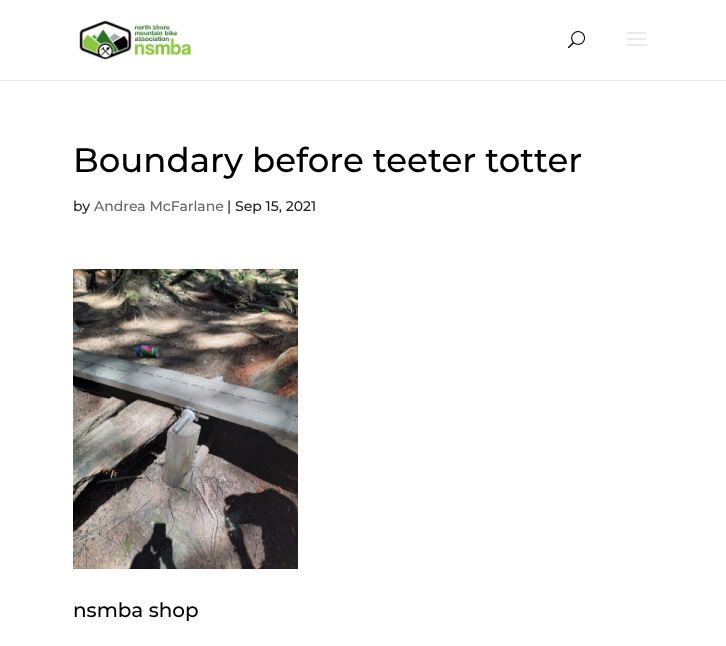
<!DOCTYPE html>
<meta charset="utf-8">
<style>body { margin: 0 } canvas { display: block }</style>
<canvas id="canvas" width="726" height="646"></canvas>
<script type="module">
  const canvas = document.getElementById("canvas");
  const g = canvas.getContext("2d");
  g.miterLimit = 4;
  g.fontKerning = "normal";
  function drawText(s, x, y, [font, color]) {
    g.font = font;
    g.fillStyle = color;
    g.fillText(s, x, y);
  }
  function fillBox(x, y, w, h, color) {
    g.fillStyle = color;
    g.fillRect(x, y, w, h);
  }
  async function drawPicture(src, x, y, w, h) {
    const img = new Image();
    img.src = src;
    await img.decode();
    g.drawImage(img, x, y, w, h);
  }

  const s1 = ["500 34px Montserrat", "#000000"];
  const s2 = ["500 14px Montserrat", "#1E1E1E"];
  const s3 = ["500 14px Montserrat", "#666666"];
  const s4 = ["500 20px Montserrat", "#000000"];

  fillBox(0, 0, 726, 646, "#FFFFFF");
  fillBox(0, 80, 726, 1, "#E6E6E6");
  await drawPicture("pic1.png", 79, 20, 113, 40);
  await drawPicture("pic2.png", 568, 31, 17, 18);
  await drawPicture("pic3.png", 627, 32, 20, 14);
  drawText("Boundary before teeter totter", 73, 172, s1);
  drawText("by", 73, 211, s2);
  drawText("Andrea McFarlane", 94, 211, s3);
  drawText("| Sep 15, 2021", 227, 211, s2);
  await drawPicture("pic4.png", 73, 269, 225, 300);
  drawText("nsmba shop", 73, 617, s4);
</script>
